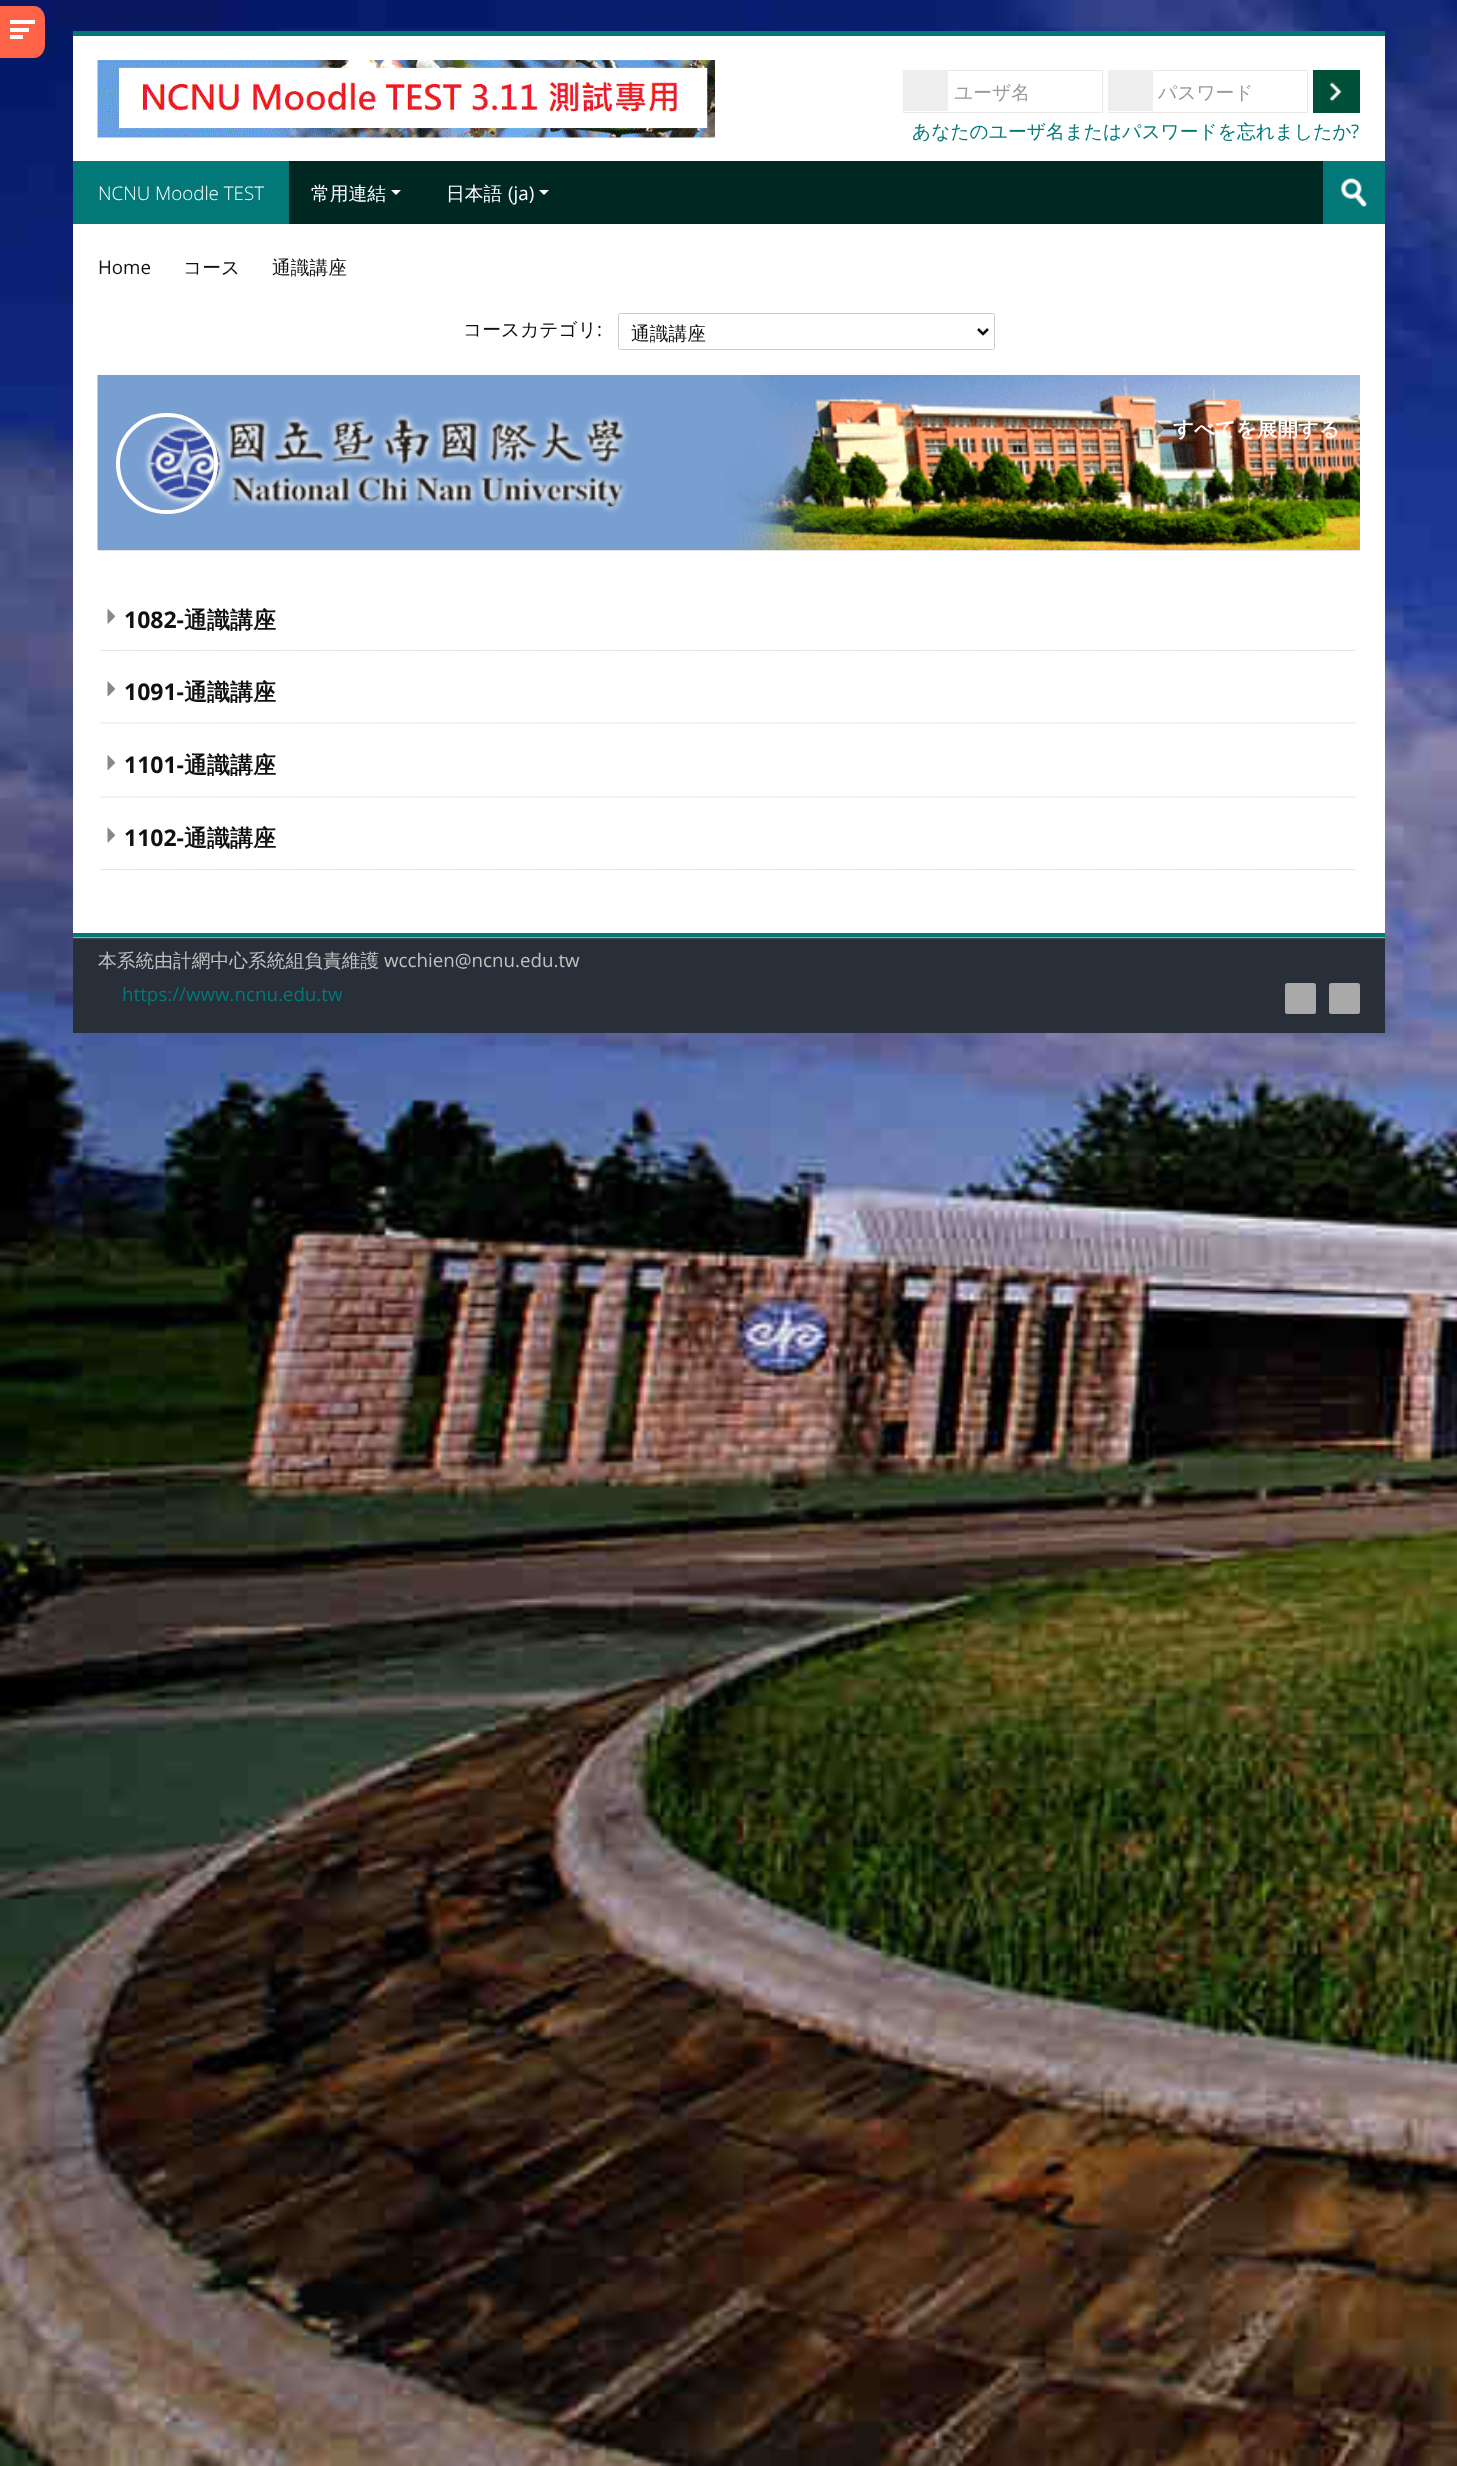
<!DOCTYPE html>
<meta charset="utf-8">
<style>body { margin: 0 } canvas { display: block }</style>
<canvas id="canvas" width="1457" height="2466"></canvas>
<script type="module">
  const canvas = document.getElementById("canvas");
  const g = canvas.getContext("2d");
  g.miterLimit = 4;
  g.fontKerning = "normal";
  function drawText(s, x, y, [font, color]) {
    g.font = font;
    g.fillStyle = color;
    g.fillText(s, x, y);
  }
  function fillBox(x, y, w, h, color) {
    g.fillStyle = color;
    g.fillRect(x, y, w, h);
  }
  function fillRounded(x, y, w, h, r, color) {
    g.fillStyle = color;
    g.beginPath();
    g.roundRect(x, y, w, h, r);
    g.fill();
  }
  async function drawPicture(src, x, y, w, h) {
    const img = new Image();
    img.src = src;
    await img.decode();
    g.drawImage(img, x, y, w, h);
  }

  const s1 = ["500 18.75px WenQuanYi Zen Hei", "#999999"];
  const s2 = ["500 18.75px WenQuanYi Zen Hei", "#027878"];
  const s3 = ["18.75px Open Sans", "#027878"];
  const s4 = ["300 18.75px Open Sans", "#FFFFFF"];
  const s5 = ["500 18.75px WenQuanYi Zen Hei", "#FFFFFF"];
  const s6 = ["18.75px Open Sans", "#FFFFFF"];
  const s7 = ["18.75px Open Sans", "#111111"];
  const s8 = ["500 18.75px WenQuanYi Zen Hei", "#111111"];
  const s9 = ["bold 20.5px WenQuanYi Zen Hei", "#FFFFFF"];
  const s10 = ["bold 23px Open Sans", "#111111"];
  const s11 = ["bold 23px WenQuanYi Zen Hei", "#111111"];
  const s12 = ["500 18.75px WenQuanYi Zen Hei", "#BDC3C2"];
  const s13 = ["18.75px Open Sans", "#BDC3C2"];

  fillBox(0, 0, 1457, 2466, "#FFFFFF");
  await drawPicture("pic1.png", 0, 0, 1457, 2466);
  g.fillStyle = "#FF6347";
  g.beginPath();
  g.moveTo(0, 6);
  g.lineTo(34, 6);
  g.bezierCurveTo(40, 6, 45, 12, 45, 19);
  g.lineTo(45, 45);
  g.bezierCurveTo(45, 52, 40, 58, 34, 58);
  g.lineTo(0, 58);
  g.closePath();
  g.fill();
  fillBox(10, 20, 25, 4, "#FFFFFF");
  fillBox(10, 28, 19, 4, "#FFFFFF");
  fillBox(10, 35, 13, 4, "#FFFFFF");
  fillBox(73, 31, 1312, 5, "#027878");
  fillBox(73, 36, 1312, 125, "#FFFFFF");
  await drawPicture("pic2.png", 97, 60, 618, 78);
  g.strokeStyle = "#E9E9E9";
  g.strokeRect(903.5, 70.5, 199, 42);
  fillBox(903, 70, 45, 41, "#EEEEEE");
  drawText("ユーザ名", 954, 99, s1);
  g.strokeRect(1108.5, 70.5, 199, 42);
  fillBox(1108, 70, 45, 41, "#EEEEEE");
  drawText("パスワード", 1158, 99, s1);
  fillBox(1313, 70, 47, 43, "#015038");
  await drawPicture("pic3.png", 1330, 82, 12, 20);
  drawText("あなたのユーザ名またはパスワードを忘れましたか", 912, 138, s2);
  drawText("?", 1351, 138, s3);
  fillBox(289, 161, 1034, 63, "#002823");
  fillBox(73, 161, 216, 63, "#027878");
  drawText("NCNU Moodle TEST", 98, 200, s4);
  drawText("常用連結", 311, 200, s5);
  g.beginPath();
  g.moveTo(391, 190);
  g.lineTo(401, 190);
  g.lineTo(396, 195);
  g.closePath();
  g.fill();
  drawText("日本語", 446, 200, s5);
  drawText("(ja)", 508, 200, s6);
  g.beginPath();
  g.moveTo(539, 190);
  g.lineTo(549, 190);
  g.lineTo(544, 195);
  g.closePath();
  g.fill();
  fillBox(1323, 161, 62, 63, "#027878");
  await drawPicture("pic4.png", 1341, 178, 26, 29);
  fillBox(73, 224, 1312, 709, "#FFFFFF");
  drawText("Home", 98, 274, s7);
  drawText("コース", 183, 274, s8);
  drawText("通識講座", 272, 274, s8);
  drawText("コースカテゴリ", 463, 336, s8);
  drawText(":", 597, 336, s7);
  g.beginPath();
  g.roundRect(618.5, 313.5, 376, 36, 2);
  g.strokeStyle = "#CCCCCC";
  g.stroke();
  g.beginPath();
  g.moveTo(978, 329);
  g.lineTo(983, 334);
  g.lineTo(988, 329);
  g.strokeStyle = "#111111";
  g.lineWidth = 2.5;
  g.stroke();
  drawText("通識講座", 631, 340, s8);
  await drawPicture("pic5.png", 97, 375, 1263, 175);
  fillBox(98, 550, 1262, 1, "#E2E2E2");
  g.beginPath();
  g.roundRect(118, 415, 98, 97, 48.5);
  g.strokeStyle = "#FFFFFF";
  g.lineWidth = 4;
  g.stroke();
  await drawPicture("pic6.png", 1156, 421, 8, 16);
  drawText("すべてを展開する", 1173, 436, s9);
  await drawPicture("pic7.png", 107, 608, 8, 16);
  g.beginPath();
  g.moveTo(101, 650.5);
  g.lineTo(1356, 650.5);
  g.strokeStyle = "#CCCCCC";
  g.lineWidth = 1.2;
  g.setLineDash([1.25, 1.25]);
  g.stroke();
  drawText("1082-", 124, 628, s10);
  drawText("通識講座", 184, 628, s11);
  await drawPicture("pic8.png", 107, 681, 8, 16);
  g.beginPath();
  g.moveTo(101, 723);
  g.lineTo(1356, 723);
  g.stroke();
  drawText("1091-", 124, 700, s10);
  drawText("通識講座", 184, 700, s11);
  await drawPicture("pic9.png", 107, 755, 8, 15);
  g.beginPath();
  g.moveTo(101, 797);
  g.lineTo(1356, 797);
  g.stroke();
  drawText("1101-", 124, 773, s10);
  drawText("通識講座", 184, 773, s11);
  await drawPicture("pic10.png", 107, 827, 8, 16);
  g.beginPath();
  g.moveTo(101, 869.5);
  g.lineTo(1356, 869.5);
  g.stroke();
  drawText("1102-", 124, 846, s10);
  drawText("通識講座", 184, 846, s11);
  fillBox(73, 937, 1312, 1, "#B7B400");
  fillBox(73, 933, 1312, 4, "#027878");
  fillBox(73, 939, 1312, 94, "#292F38");
  fillBox(73, 938, 1312, 1, "#41464E");
  drawText("本系統由計網中心系統組負責維護", 98, 967, s12);
  drawText("wcchien@ncnu.edu.tw", 384, 967, s13);
  drawText("https://www.ncnu.edu.tw", 122, 1001, s3);
  fillRounded(1285, 983, 31, 31, 2.5, "#A9A9A9");
  fillRounded(1329, 983, 31, 31, 2.5, "#A9A9A9");
</script>
